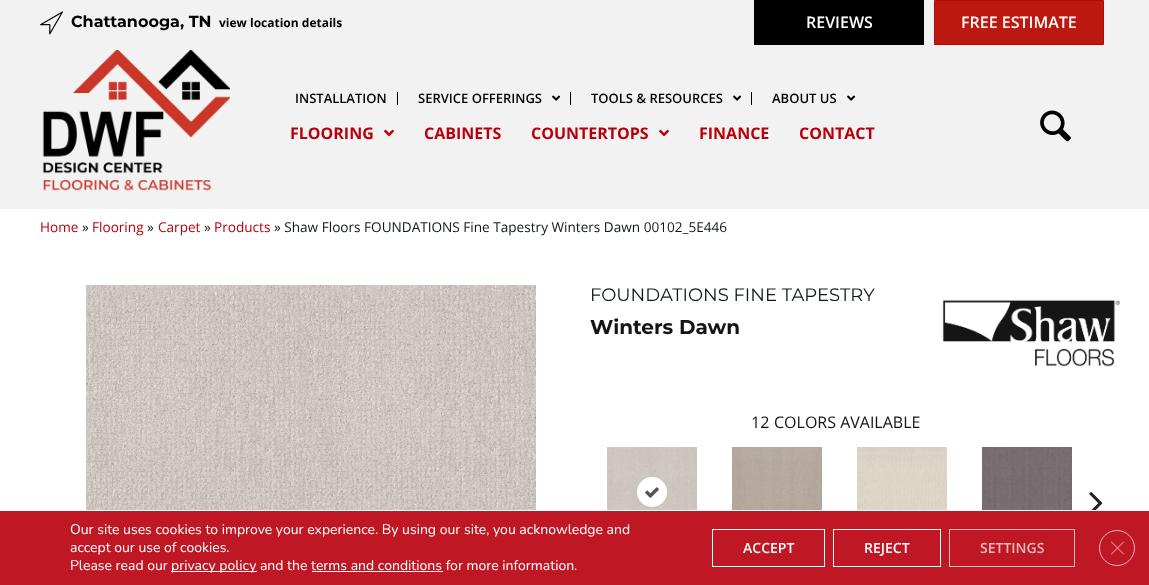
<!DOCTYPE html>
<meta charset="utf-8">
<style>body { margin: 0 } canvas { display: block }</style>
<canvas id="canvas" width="1149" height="585"></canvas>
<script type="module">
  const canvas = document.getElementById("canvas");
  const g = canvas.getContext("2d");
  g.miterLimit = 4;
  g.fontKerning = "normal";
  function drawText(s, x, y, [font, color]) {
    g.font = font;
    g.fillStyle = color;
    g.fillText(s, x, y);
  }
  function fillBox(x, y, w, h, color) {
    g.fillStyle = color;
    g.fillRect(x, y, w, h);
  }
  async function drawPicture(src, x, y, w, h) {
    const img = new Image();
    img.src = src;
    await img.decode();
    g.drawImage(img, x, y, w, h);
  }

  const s1 = ["bold 16px Montserrat", "#000000"];
  const s2 = ["bold 12px Open Sans", "#000000"];
  const s3 = ["600 16px Open Sans", "#FFFFFF"];
  const s4 = ["600 13px Open Sans", "#000000"];
  const s5 = ["bold 16px Open Sans", "#B7000B"];
  const s6 = ["13.6px Open Sans", "#B7000B"];
  const s7 = ["13.6px Open Sans", "#10171B"];
  const s8 = ["18px Montserrat", "#10171B"];
  const s9 = ["bold 20px Montserrat", "#141414"];
  const s10 = ["16px Open Sans", "#141414"];
  const s11 = ["14px Nunito", "#FFFFFF"];
  const s12 = ["600 14px Open Sans", "#FFFFFF"];
  const s13 = ["600 14px Open Sans", "#ECB9BD"];

  fillBox(0, 0, 1149, 585, "#F2F2F2");
  await drawPicture("pic1.png", 40, 11, 23, 24);
  drawText("Chattanooga, TN", 71, 27, s1);
  drawText("view location details", 219, 27, s2);
  fillBox(754, 0, 170, 45, "#000000");
  drawText("REVIEWS", 806, 28, s3);
  g.fillStyle = "#BB1910";
  g.beginPath();
  g.rect(934.5, 0.5, 169, 44);
  g.fill();
  g.strokeStyle = "#AF0D04";
  g.stroke();
  drawText("FREE ESTIMATE", 961, 28, s3);
  await drawPicture("pic2.png", 42, 50, 188, 141);
  fillBox(397, 92, 1, 13, "#000000");
  drawText("INSTALLATION", 295, 103, s4);
  fillBox(570, 92, 1, 13, "#000000");
  drawText("SERVICE OFFERINGS", 418, 103, s4);
  await drawPicture("pic3.png", 552, 95, 9, 6);
  fillBox(751, 92, 1, 13, "#000000");
  drawText("TOOLS & RESOURCES", 591, 103, s4);
  await drawPicture("pic3.png", 733, 95, 9, 6);
  drawText("ABOUT US", 772, 103, s4);
  await drawPicture("pic3.png", 847, 95, 9, 6);
  drawText("FLOORING", 290, 139, s5);
  await drawPicture("pic4.png", 384, 129, 10, 8);
  drawText("CABINETS", 424, 139, s5);
  drawText("COUNTERTOPS", 531, 139, s5);
  await drawPicture("pic4.png", 659, 129, 10, 8);
  drawText("FINANCE", 699, 139, s5);
  drawText("CONTACT", 799, 139, s5);
  await drawPicture("pic5.png", 1040, 110, 31, 32);
  fillBox(0, 209, 1149, 302, "#FFFFFF");
  drawText("Home", 40, 232, s6);
  drawText("»", 82, 232, s7);
  drawText("Flooring", 92, 232, s6);
  drawText("»", 147, 232, s7);
  drawText("Carpet", 158, 232, s6);
  drawText("»", 204, 232, s7);
  drawText("Products", 214, 232, s6);
  drawText("» Shaw Floors FOUNDATIONS Fine Tapestry Winters Dawn 00102_5E446", 274, 232, s7);
  await drawPicture("pic6.png", 86, 285, 450, 225);
  drawText("FOUNDATIONS FINE TAPESTRY", 590, 301, s8);
  drawText("Winters Dawn", 590, 334, s9);
  await drawPicture("pic7.png", 942, 299, 178, 68);
  drawText("12", 751, 428, s10);
  drawText("COLORS AVAILABLE", 774, 428, s10);
  await drawPicture("pic8.png", 607, 447, 90, 63);
  g.fillStyle = "#FFFFFF";
  g.beginPath();
  g.arc(652, 492, 15, 0, Math.PI * 2);
  g.fill();
  await drawPicture("pic9.png", 645, 487, 14, 11);
  await drawPicture("pic10.png", 732, 447, 90, 63);
  await drawPicture("pic11.png", 857, 447, 90, 63);
  await drawPicture("pic12.png", 982, 447, 90, 63);
  await drawPicture("pic13.png", 1089, 492, 14, 18);
  fillBox(0, 511, 1149, 74, "#BF1723");
  drawText("Our site uses cookies to improve your experience. By using our site, you acknowledge and", 70, 534, s11);
  drawText("accept our use of cookies.", 70, 552, s11);
  drawText("Please read our", 70, 570, s11);
  fillBox(171, 571, 86, 1, "#FFFFFF");
  drawText("privacy policy and the terms and conditions for more information.", 171, 570, s11);
  fillBox(312, 571, 131, 1, "#FFFFFF");
  g.strokeStyle = "#FFFFFF";
  g.strokeRect(712.5, 529.5, 112, 37);
  drawText("ACCEPT", 743, 553, s12);
  g.strokeRect(833.5, 529.5, 107, 37);
  drawText("REJECT", 864, 553, s12);
  g.strokeStyle = "#ECB9BD";
  g.strokeRect(949.5, 529.5, 125, 37);
  drawText("SETTINGS", 980, 553, s13);
  g.beginPath();
  g.arc(1117, 548, 17.5, 0, Math.PI * 2);
  g.stroke();
  g.beginPath();
  g.moveTo(1123.5, 541.5);
  g.lineTo(1124, 542);
  g.lineTo(1111.5, 554.5);
  g.lineTo(1111, 554);
  g.closePath();
  g.fill();
  g.beginPath();
  g.moveTo(1111, 542);
  g.lineTo(1111.5, 541.5);
  g.lineTo(1124, 554);
  g.lineTo(1123.5, 554.5);
  g.closePath();
  g.fill();
</script>
